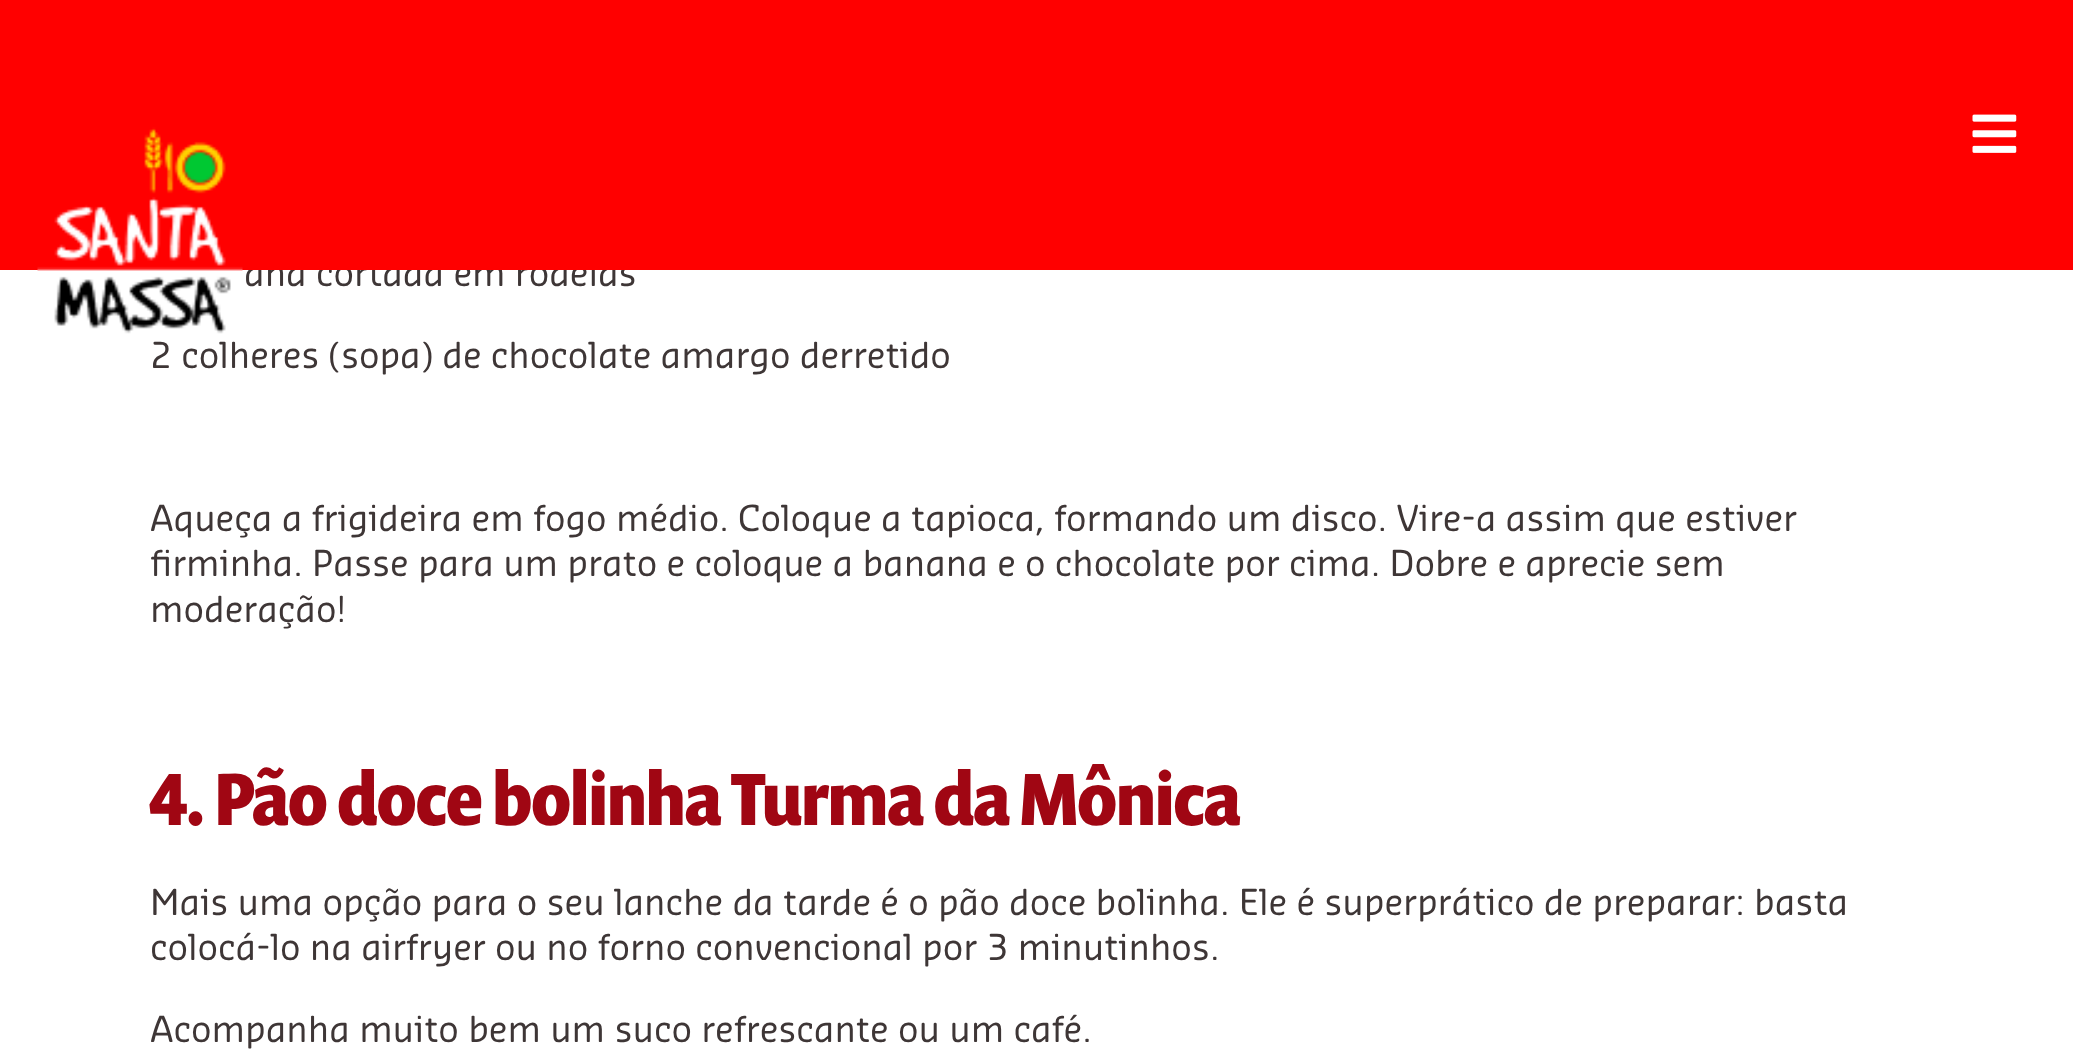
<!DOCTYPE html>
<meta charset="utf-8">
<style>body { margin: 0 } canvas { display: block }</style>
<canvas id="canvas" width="2073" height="1055"></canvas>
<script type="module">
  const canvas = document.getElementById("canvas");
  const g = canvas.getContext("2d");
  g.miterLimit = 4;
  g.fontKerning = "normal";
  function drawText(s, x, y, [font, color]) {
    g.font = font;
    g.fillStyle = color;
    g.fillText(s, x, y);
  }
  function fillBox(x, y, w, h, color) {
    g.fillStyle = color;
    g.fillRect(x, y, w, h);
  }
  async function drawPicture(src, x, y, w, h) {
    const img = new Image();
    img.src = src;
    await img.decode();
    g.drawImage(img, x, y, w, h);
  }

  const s1 = ["35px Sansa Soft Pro", "#3E3636"];
  const s2 = ["bold 75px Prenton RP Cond", "#A00613"];

  fillBox(0, 0, 2073, 1055, "#FFFFFF");
  drawText("ana cortada em rodelas", 244, 286, s1);
  fillBox(0, 0, 2073, 270, "#FF0000");
  await drawPicture("pic1.png", 37, 127, 206, 207);
  await drawPicture("pic2.png", 1972, 114, 45, 39);
  drawText("2 colheres (sopa) de chocolate amargo derretido", 150, 368, s1);
  drawText("Aqueça a frigideira em fogo médio. Coloque a tapioca, formando um disco. Vire-a assim que estiver", 150, 531, s1);
  drawText("firminha. Passe para um prato e coloque a banana e o chocolate por cima. Dobre e aprecie sem", 150, 576, s1);
  drawText("moderação!", 150, 622, s1);
  drawText("4. Pão doce bolinha Turma da Mônica", 150, 825, s2);
  drawText("Mais uma opção para o seu lanche da tarde é o pão doce bolinha. Ele é superprático de preparar: basta", 150, 915, s1);
  drawText("colocá-lo na airfryer ou no forno convencional por 3 minutinhos.", 150, 960, s1);
  drawText("Acompanha muito bem um suco refrescante ou um café.", 150, 1042, s1);
</script>
